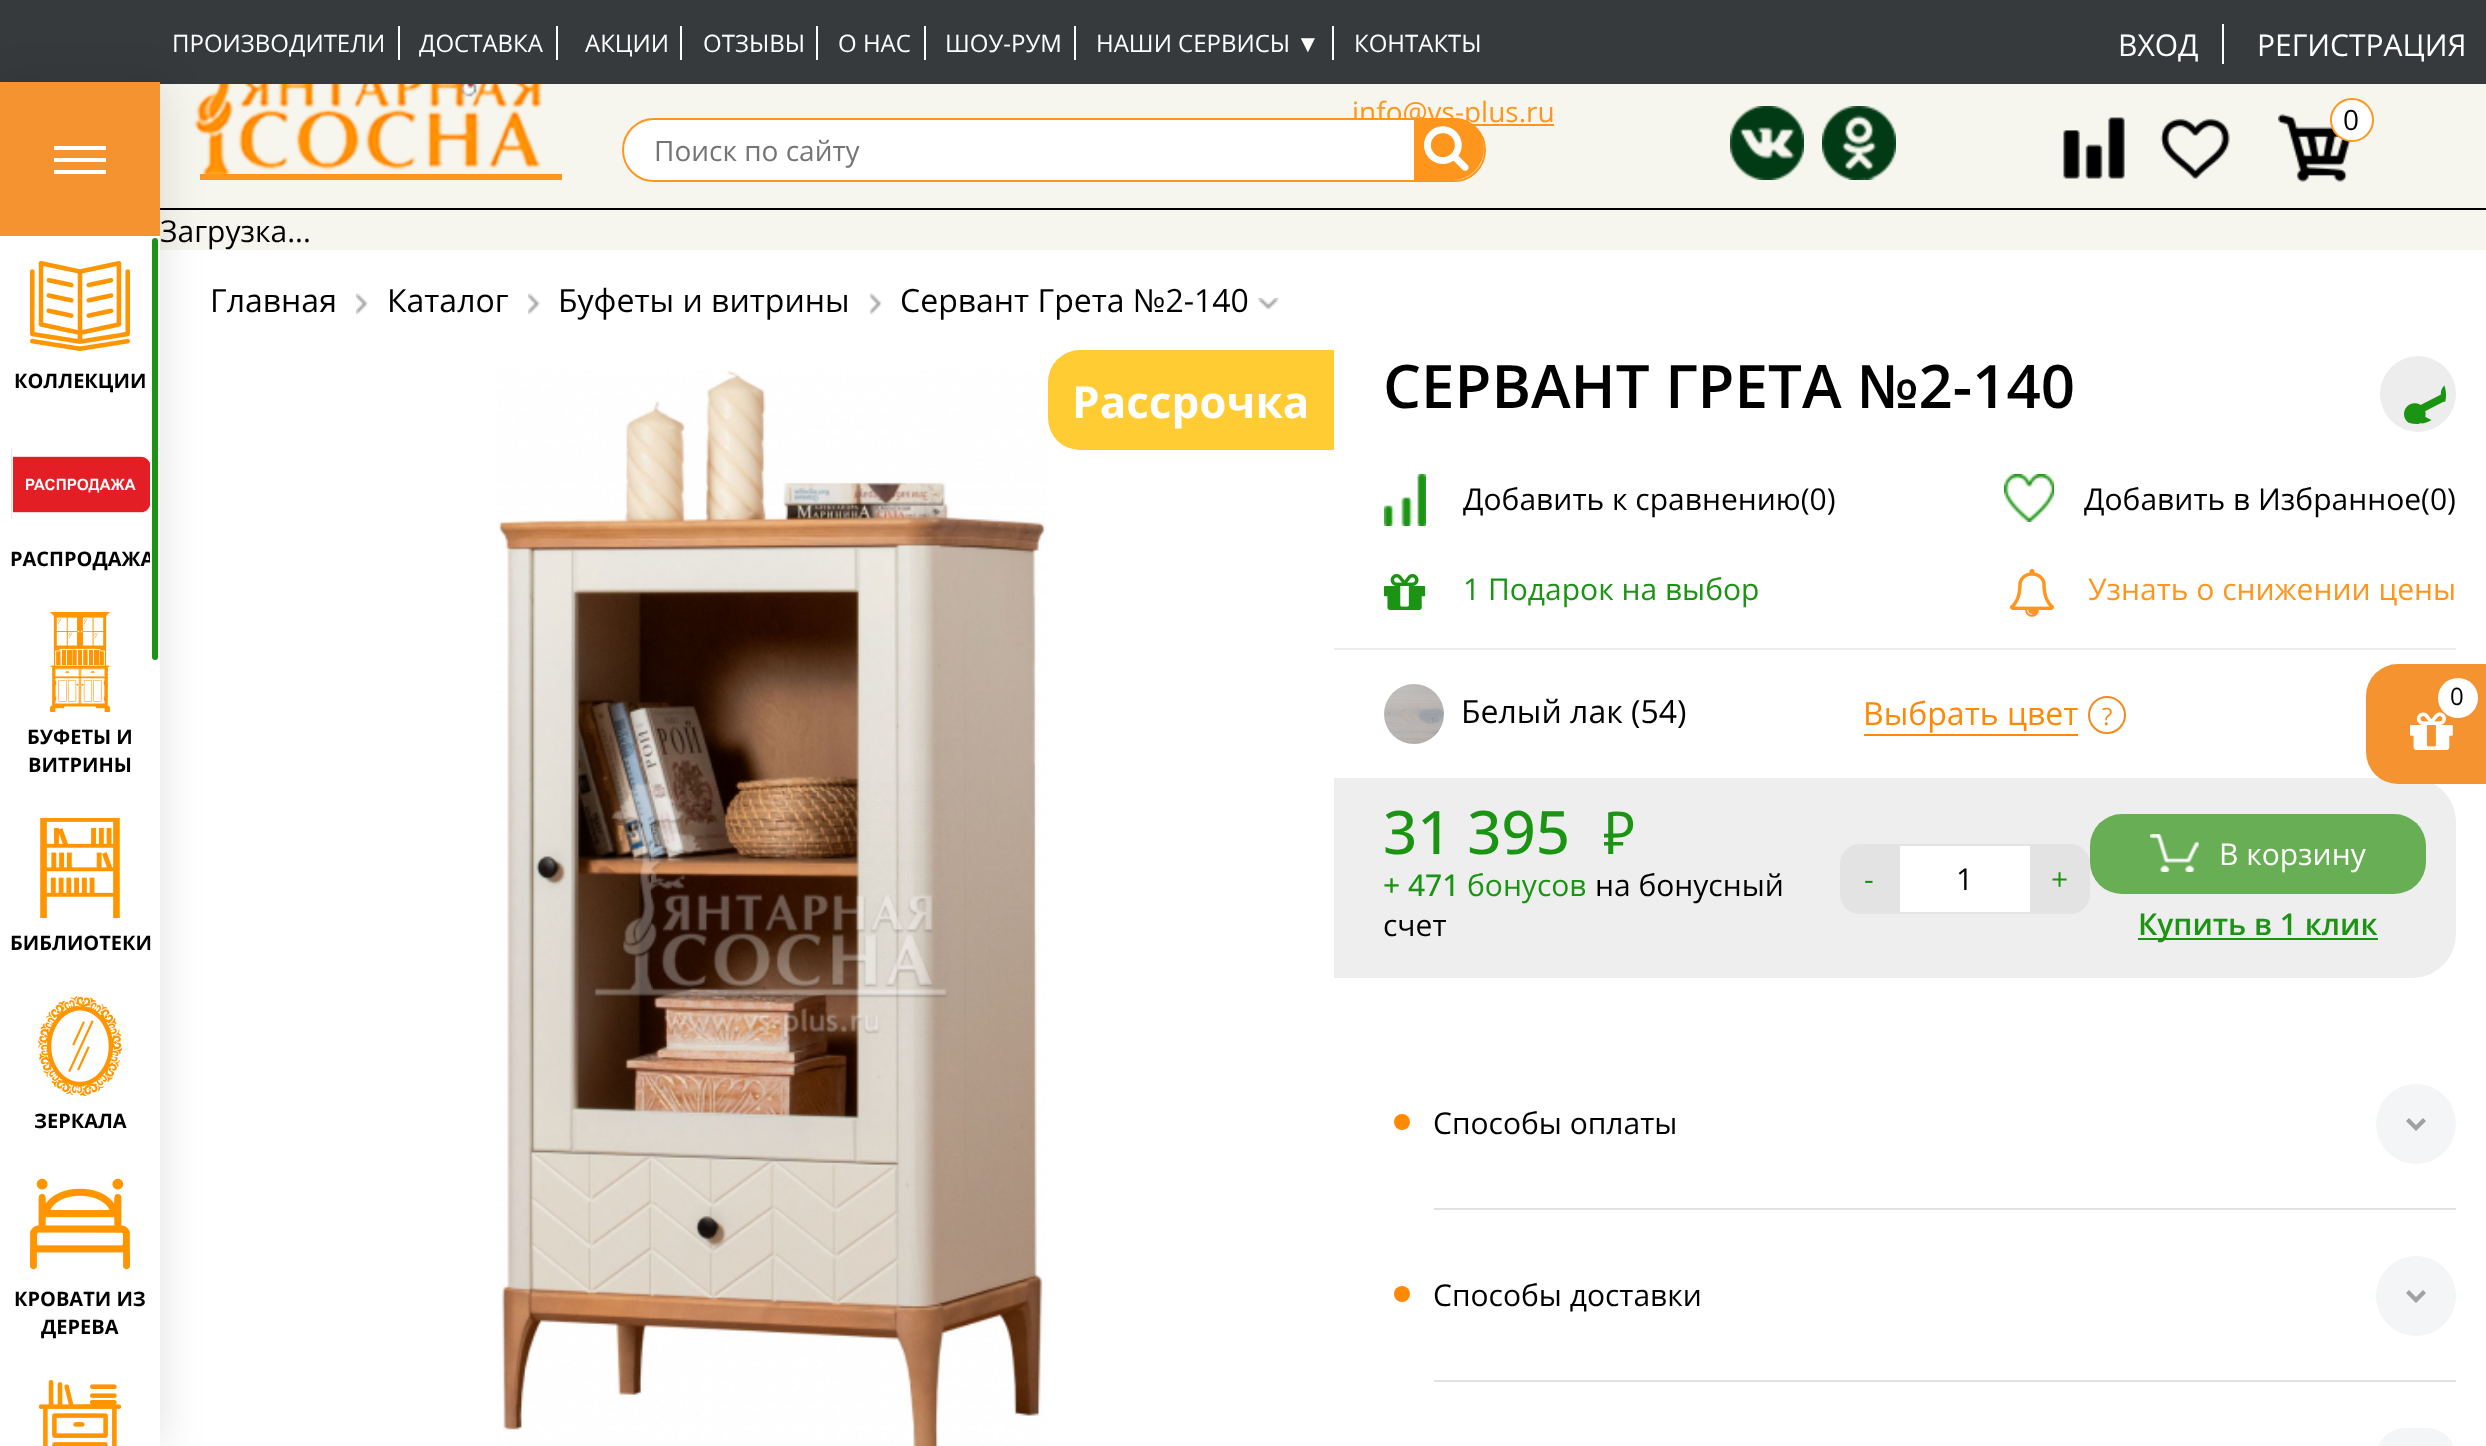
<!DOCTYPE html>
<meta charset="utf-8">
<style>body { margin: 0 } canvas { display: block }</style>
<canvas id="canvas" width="2486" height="1446"></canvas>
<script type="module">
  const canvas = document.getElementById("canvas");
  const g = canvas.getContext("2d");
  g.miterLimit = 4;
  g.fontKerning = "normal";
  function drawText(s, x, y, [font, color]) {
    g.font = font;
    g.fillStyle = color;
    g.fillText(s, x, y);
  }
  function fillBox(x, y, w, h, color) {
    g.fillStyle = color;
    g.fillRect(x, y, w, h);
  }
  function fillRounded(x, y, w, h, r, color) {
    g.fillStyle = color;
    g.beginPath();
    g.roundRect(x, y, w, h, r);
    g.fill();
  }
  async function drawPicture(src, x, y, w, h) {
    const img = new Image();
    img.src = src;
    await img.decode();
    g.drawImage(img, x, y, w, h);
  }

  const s1 = ["24px Open Sans", "#FFFFFF"];
  const s2 = ["24px Liberation Sans", "#FFFFFF"];
  const s3 = ["30px Open Sans", "#FFFFFF"];
  const s4 = ["bold 20px Open Sans", "#000000"];
  const s5 = ["28px Open Sans", "#FE961D"];
  const s6 = ["28px Open Sans", "#757575"];
  const s7 = ["28px Open Sans", "#000000"];
  const s8 = ["30px Open Sans", "#000000"];
  const s9 = ["32px Open Sans", "#000000"];
  const s10 = ["bold 44px Open Sans", "#FFFFFF"];
  const s11 = ["600 60px Open Sans", "#000000"];
  const s12 = ["30px Open Sans", "#1A9412"];
  const s13 = ["30px Open Sans", "#FE961D"];
  const s14 = ["32px Open Sans", "#FF8804"];
  const s15 = ["24px Open Sans", "#F38B20"];
  const s16 = ["500 60px Open Sans", "#1A9412"];
  const s17 = ["60px PT Sans", "#1A9412"];
  const s18 = ["500 30px Open Sans", "#1A9412"];
  const s19 = ["600 30px Open Sans", "#1A9412"];
  const s20 = ["24px Open Sans", "#000000"];

  fillBox(0, 0, 2486, 1446, "#F6F6EE");
  fillBox(0, 0, 2486, 84, "#363A3D");
  drawText("ПРОИЗВОДИТЕЛИ", 172, 52, s1);
  fillBox(398, 26, 2, 34, "#FFFFFF");
  drawText("ДОСТАВКА", 419, 52, s1);
  fillBox(556, 26, 2, 34, "#FFFFFF");
  drawText("АКЦИИ", 585, 52, s1);
  fillBox(680, 26, 2, 34, "#FFFFFF");
  drawText("ОТЗЫВЫ", 703, 52, s1);
  fillBox(816, 26, 2, 34, "#FFFFFF");
  drawText("О НАС", 838, 52, s1);
  fillBox(924, 26, 2, 34, "#FFFFFF");
  drawText("ШОУ-РУМ", 945, 52, s1);
  fillBox(1074, 26, 2, 34, "#FFFFFF");
  drawText("НАШИ СЕРВИСЫ", 1096, 52, s1);
  drawText("▼", 1296, 52, s2);
  fillBox(1332, 26, 2, 34, "#FFFFFF");
  drawText("КОНТАКТЫ", 1354, 52, s1);
  drawText("ВХОД", 2118, 56, s3);
  fillBox(2222, 24, 2, 40, "#FFFFFF");
  drawText("РЕГИСТРАЦИЯ", 2257, 56, s3);
  await drawPicture("pic8.png", 193, 84, 349, 90);
  fillBox(200, 174, 362, 6, "#FE961D");
  fillBox(160, 208, 2326, 2, "#000000");
  fillBox(160, 250, 2326, 1196, "#FFFFFF");
  g.fillStyle = "rgba(0, 0, 0, 0.1)";
  g.filter = "blur(20px)";
  g.beginPath();
  g.rect(4, 82, 160, 1364);
  g.fill();
  g.filter = "none";
  fillBox(0, 82, 160, 154, "#F49330");
  g.fillStyle = "#FFFFFF";
  g.beginPath();
  g.moveTo(54, 146);
  g.lineTo(106, 146);
  g.lineTo(106, 150);
  g.lineTo(54, 150);
  g.closePath();
  g.moveTo(54, 158);
  g.lineTo(106, 158);
  g.lineTo(106, 162);
  g.lineTo(54, 162);
  g.closePath();
  g.moveTo(54, 170);
  g.lineTo(106, 170);
  g.lineTo(106, 174);
  g.lineTo(54, 174);
  g.closePath();
  g.fill();
  fillBox(0, 236, 160, 1210, "#FFFFFF");
  drawText("РАСПРОДАЖА", 10, 566, s4);
  g.fillStyle = "#1A9412";
  g.beginPath();
  g.roundRect(151, 237, 8, 424, 4);
  g.fill();
  g.strokeStyle = "#FFFFFF";
  g.lineWidth = 2;
  g.stroke();
  await drawPicture("pic1.png", 30, 261, 100, 90);
  drawText("КОЛЛЕКЦИИ", 14, 388, s4);
  await drawPicture("pic2.png", 11, 448, 139, 71);
  await drawPicture("pic3.png", 50, 612, 60, 100);
  drawText("БУФЕТЫ И", 27, 744, s4);
  drawText("ВИТРИНЫ", 28, 772, s4);
  await drawPicture("pic4.png", 40, 818, 80, 100);
  drawText("БИБЛИОТЕКИ", 10, 950, s4);
  await drawPicture("pic5.png", 38, 996, 84, 100);
  drawText("ЗЕРКАЛА", 34, 1128, s4);
  await drawPicture("pic6.png", 30, 1178, 100, 92);
  drawText("КРОВАТИ ИЗ", 14, 1306, s4);
  drawText("ДЕРЕВА", 41, 1334, s4);
  await drawPicture("pic7.png", 38, 1380, 84, 66);
  fillBox(1472, 124, 82, 2, "#FE961D");
  drawText("info@vs-plus.ru", 1352, 122, s5);
  g.fillStyle = "#FFFFFF";
  g.beginPath();
  g.roundRect(623, 119, 862, 62, 31);
  g.fill();
  g.strokeStyle = "#FE961D";
  g.stroke();
  drawText("Поиск по сайту", 654, 161, s6);
  g.fillStyle = "#FE961D";
  g.beginPath();
  g.roundRect(1414, 118, 70, 62, [0, 31, 31, 0]);
  g.fill();
  await drawPicture("pic9.png", 1424, 126, 45, 45);
  await drawPicture("pic10.png", 1730, 106, 74, 74);
  await drawPicture("pic11.png", 1822, 106, 74, 74);
  await drawPicture("pic12.png", 2063, 117, 62, 62);
  await drawPicture("pic13.png", 2160, 118, 70, 61);
  await drawPicture("pic14.png", 2278, 114, 73, 68);
  g.fillStyle = "#FFFFFF";
  g.beginPath();
  g.arc(2352, 120, 21, 0, Math.PI * 2);
  g.fill();
  g.stroke();
  drawText("0", 2343, 130, s7);
  drawText("Загрузка...", 160, 242, s8);
  await drawPicture("pic15.png", 356, 293, 12, 21);
  drawText("Главная", 210, 312, s9);
  await drawPicture("pic15.png", 528, 293, 12, 21);
  drawText("Каталог", 387, 312, s9);
  await drawPicture("pic15.png", 870, 293, 12, 21);
  drawText("Буфеты и витрины", 558, 312, s9);
  await drawPicture("pic16.png", 1258, 298, 21, 12);
  drawText("Сервант Грета №2-140", 900, 312, s9);
  await drawPicture("pic17.png", 496, 370, 551, 1076);
  g.fillStyle = "#FFCC33";
  g.beginPath();
  g.roundRect(1048, 350, 286, 100, [32, 0, 0, 32]);
  g.fill();
  drawText("Рассрочка", 1072, 418, s10);
  drawText("СЕРВАНТ ГРЕТА №2-140", 1383, 408, s11);
  g.fillStyle = "#EDEDED";
  g.beginPath();
  g.arc(2418, 394, 38, 0, Math.PI * 2);
  g.fill();
  await drawPicture("pic18.png", 2404, 385, 42, 39);
  await drawPicture("pic19.png", 1384, 474, 42, 52);
  drawText("Добавить к сравнению(0)", 1463, 510, s8);
  await drawPicture("pic20.png", 2004, 474, 50, 48);
  drawText("Добавить в Избранное(0)", 2084, 510, s8);
  await drawPicture("pic21.png", 1384, 574, 42, 36);
  drawText("1 Подарок на выбор", 1463, 600, s12);
  await drawPicture("pic22.png", 2009, 568, 46, 49);
  drawText("Узнать о снижении цены", 2088, 600, s13);
  fillBox(1334, 648, 1122, 2, "#EDEDED");
  await drawPicture("pic23.png", 1384, 684, 60, 60);
  drawText("Белый лак (54)", 1461, 723, s9);
  fillBox(1864, 734, 214, 2, "#FF8804");
  drawText("Выбрать цвет", 1863, 725, s14);
  g.beginPath();
  g.arc(2107, 715, 18, 0, Math.PI * 2);
  g.strokeStyle = "#F38B20";
  g.stroke();
  drawText("?", 2102, 725, s15);
  g.fillStyle = "#EEEEEE";
  g.beginPath();
  g.roundRect(1334, 778, 1122, 200, [0, 44, 44, 0]);
  g.fill();
  drawText("31 395", 1383, 854, s16);
  drawText("⃌", 1602, 854, s17);
  drawText("+ 471", 1383, 896, s18);
  drawText("бонусов", 1467, 896, s12);
  drawText("на бонусный", 1595, 896, s8);
  drawText("счет", 1383, 936, s8);
  g.fillStyle = "#E3E3E3";
  g.beginPath();
  g.roundRect(1841, 845, 58, 68, [19, 0, 0, 19]);
  g.fill();
  g.strokeStyle = "#E3E3E3";
  g.stroke();
  drawText("-", 1864, 890, s12);
  fillBox(1900, 846, 130, 66, "#FFFFFF");
  fillBox(1900, 844, 130, 2, "#E3E3E3");
  fillBox(1900, 912, 130, 2, "#E3E3E3");
  drawText("1", 1956, 890, s8);
  g.fillStyle = "#E3E3E3";
  g.beginPath();
  g.roundRect(2031, 845, 58, 68, [0, 19, 19, 0]);
  g.fill();
  g.stroke();
  drawText("+", 2051, 890, s12);
  fillRounded(2090, 814, 336, 80, 32, "#67AE54");
  await drawPicture("pic24.png", 2150, 834, 49, 38);
  drawText("В корзину", 2219, 865, s3);
  fillBox(2138, 938, 240, 2, "#1A9412");
  drawText("Купить в 1 клик", 2138, 935, s19);
  fillBox(1434, 1208, 1022, 2, "#E1E1E1");
  g.fillStyle = "#FF8804";
  g.beginPath();
  g.arc(1402, 1122, 8, 0, Math.PI * 2);
  g.fill();
  drawText("Способы оплаты", 1433, 1134, s8);
  g.fillStyle = "#F4F5F6";
  g.beginPath();
  g.arc(2416, 1124, 40, 0, Math.PI * 2);
  g.fill();
  g.fillStyle = "#A1A1A1";
  g.beginPath();
  g.moveTo(2423, 1118);
  g.lineTo(2426, 1121);
  g.lineTo(2416, 1131);
  g.lineTo(2406, 1121);
  g.lineTo(2409, 1118);
  g.lineTo(2416, 1125);
  g.closePath();
  g.fill();
  fillBox(1434, 1380, 1022, 2, "#E1E1E1");
  g.fillStyle = "#FF8804";
  g.beginPath();
  g.arc(1402, 1294, 8, 0, Math.PI * 2);
  g.fill();
  drawText("Способы доставки", 1433, 1306, s8);
  g.fillStyle = "#F4F5F6";
  g.beginPath();
  g.arc(2416, 1296, 40, 0, Math.PI * 2);
  g.fill();
  g.fillStyle = "#A1A1A1";
  g.beginPath();
  g.moveTo(2423, 1290);
  g.lineTo(2426, 1293);
  g.lineTo(2416, 1303);
  g.lineTo(2406, 1293);
  g.lineTo(2409, 1290);
  g.lineTo(2416, 1297);
  g.closePath();
  g.fill();
  fillRounded(2376, 1428, 80, 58, 40, "#F4F5F6");
  g.fillStyle = "#F49330";
  g.beginPath();
  g.roundRect(2366, 664, 120, 120, [32, 0, 0, 32]);
  g.fill();
  await drawPicture("pic25.png", 2410, 712, 43, 38);
  g.fillStyle = "#FFFFFF";
  g.beginPath();
  g.arc(2458, 698, 20, 0, Math.PI * 2);
  g.fill();
  drawText("0", 2450, 705, s20);
</script>
